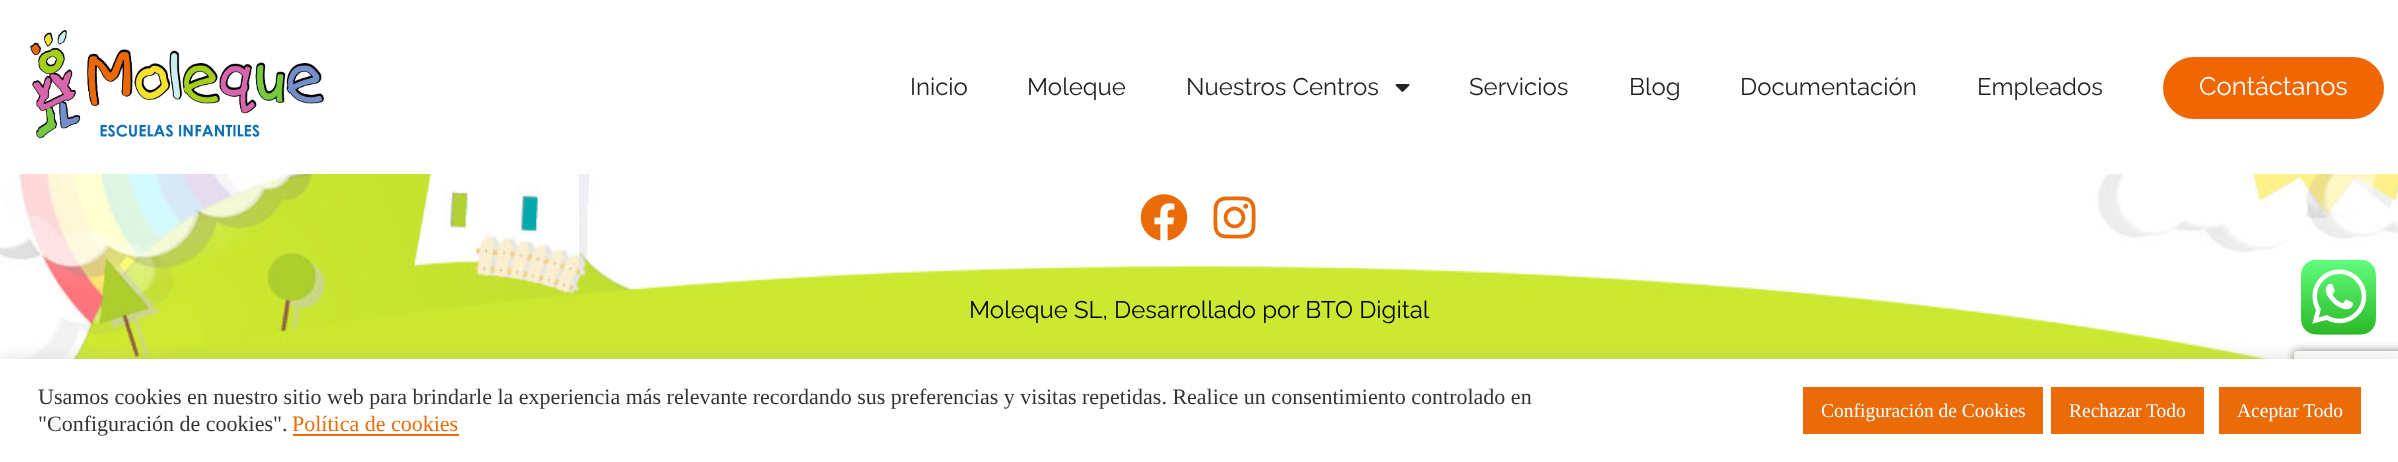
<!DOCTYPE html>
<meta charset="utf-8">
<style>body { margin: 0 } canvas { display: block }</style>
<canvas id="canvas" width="2398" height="462"></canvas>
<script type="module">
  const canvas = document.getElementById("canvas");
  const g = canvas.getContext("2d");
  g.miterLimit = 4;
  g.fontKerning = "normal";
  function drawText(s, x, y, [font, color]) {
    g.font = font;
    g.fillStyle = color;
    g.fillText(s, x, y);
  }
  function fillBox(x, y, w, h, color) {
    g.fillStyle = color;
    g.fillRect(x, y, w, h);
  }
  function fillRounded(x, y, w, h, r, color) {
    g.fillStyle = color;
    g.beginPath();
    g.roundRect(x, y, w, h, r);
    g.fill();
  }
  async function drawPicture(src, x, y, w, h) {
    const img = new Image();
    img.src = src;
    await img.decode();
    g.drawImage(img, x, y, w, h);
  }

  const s1 = ["24px Raleway", "#222222"];
  const s2 = ["25.5px Raleway", "#FFFFFF"];
  const s3 = ["24px Raleway", "#000000"];
  const s4 = ["22px Liberation Serif", "#333333"];
  const s5 = ["22px Liberation Serif", "#EB6B08"];
  const s6 = ["19.5px Liberation Serif", "#FFFFFF"];

  fillBox(0, 0, 2398, 462, "#FFFFFF");
  await drawPicture("pic1.png", 30, 30, 294, 109);
  drawText("Inicio", 910, 95, s1);
  drawText("Moleque", 1027, 95, s1);
  drawText("Nuestros Centros", 1186, 95, s1);
  await drawPicture("pic2.png", 1395, 84, 15, 8);
  drawText("Servicios", 1469, 95, s1);
  drawText("Blog", 1629, 95, s1);
  drawText("Documentación", 1740, 95, s1);
  drawText("Empleados", 1977, 95, s1);
  fillRounded(2163, 57, 221, 62, 31, "#F06701");
  drawText("Contáctanos", 2199, 95, s2);
  await drawPicture("pic3.png", 0, 174, 2398, 185);
  await drawPicture("pic4.png", 1140, 194, 48, 47);
  await drawPicture("pic5.png", 1213, 196, 43, 43);
  drawText("Moleque SL, Desarrollado por BTO Digital", 969, 318, s3);
  g.fillStyle = "rgba(172, 171, 171, 0.3)";
  g.filter = "blur(7.5px)";
  g.beginPath();
  g.rect(0, 357, 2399, 104);
  g.fill();
  g.filter = "none";
  await drawPicture("pic6.png", 2301, 260, 75, 75);
  g.save();
  g.beginPath();
  g.moveTo(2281, 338);
  g.lineTo(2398, 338);
  g.lineTo(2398, 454);
  g.lineTo(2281, 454);
  g.closePath();
  g.moveTo(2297, 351);
  g.lineTo(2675, 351);
  g.bezierCurveTo(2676.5, 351, 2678, 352.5, 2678, 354);
  g.lineTo(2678, 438);
  g.bezierCurveTo(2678, 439.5, 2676.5, 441, 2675, 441);
  g.lineTo(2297, 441);
  g.bezierCurveTo(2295.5, 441, 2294, 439.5, 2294, 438);
  g.lineTo(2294, 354);
  g.bezierCurveTo(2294, 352.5, 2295.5, 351, 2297, 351);
  g.closePath();
  g.clip("evenodd");
  g.fillStyle = "#808080";
  g.filter = "blur(4px)";
  g.beginPath();
  g.roundRect(2294, 351, 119, 90, 3);
  g.fill();
  g.filter = "none";
  g.restore();
  fillBox(0, 359, 2398, 103, "#FFFFFF");
  drawText("Usamos cookies en nuestro sitio web para brindarle la experiencia más relevante recordando sus preferencias y visitas repetidas. Realice un consentimiento controlado en", 38, 404, s4);
  drawText("\"Configuración de cookies\".", 38, 431, s4);
  drawText("Política de cookies", 292, 431, s5);
  fillBox(293, 434, 166, 2, "#EB6B08");
  fillBox(1803, 387, 240, 47, "#EB6B08");
  drawText("Configuración de Cookies", 1821, 417, s6);
  fillBox(2051, 387, 153, 47, "#EB6B08");
  drawText("Rechazar Todo", 2069, 417, s6);
  fillBox(2219, 387, 142, 47, "#EB6B08");
  drawText("Aceptar Todo", 2237, 417, s6);
</script>
